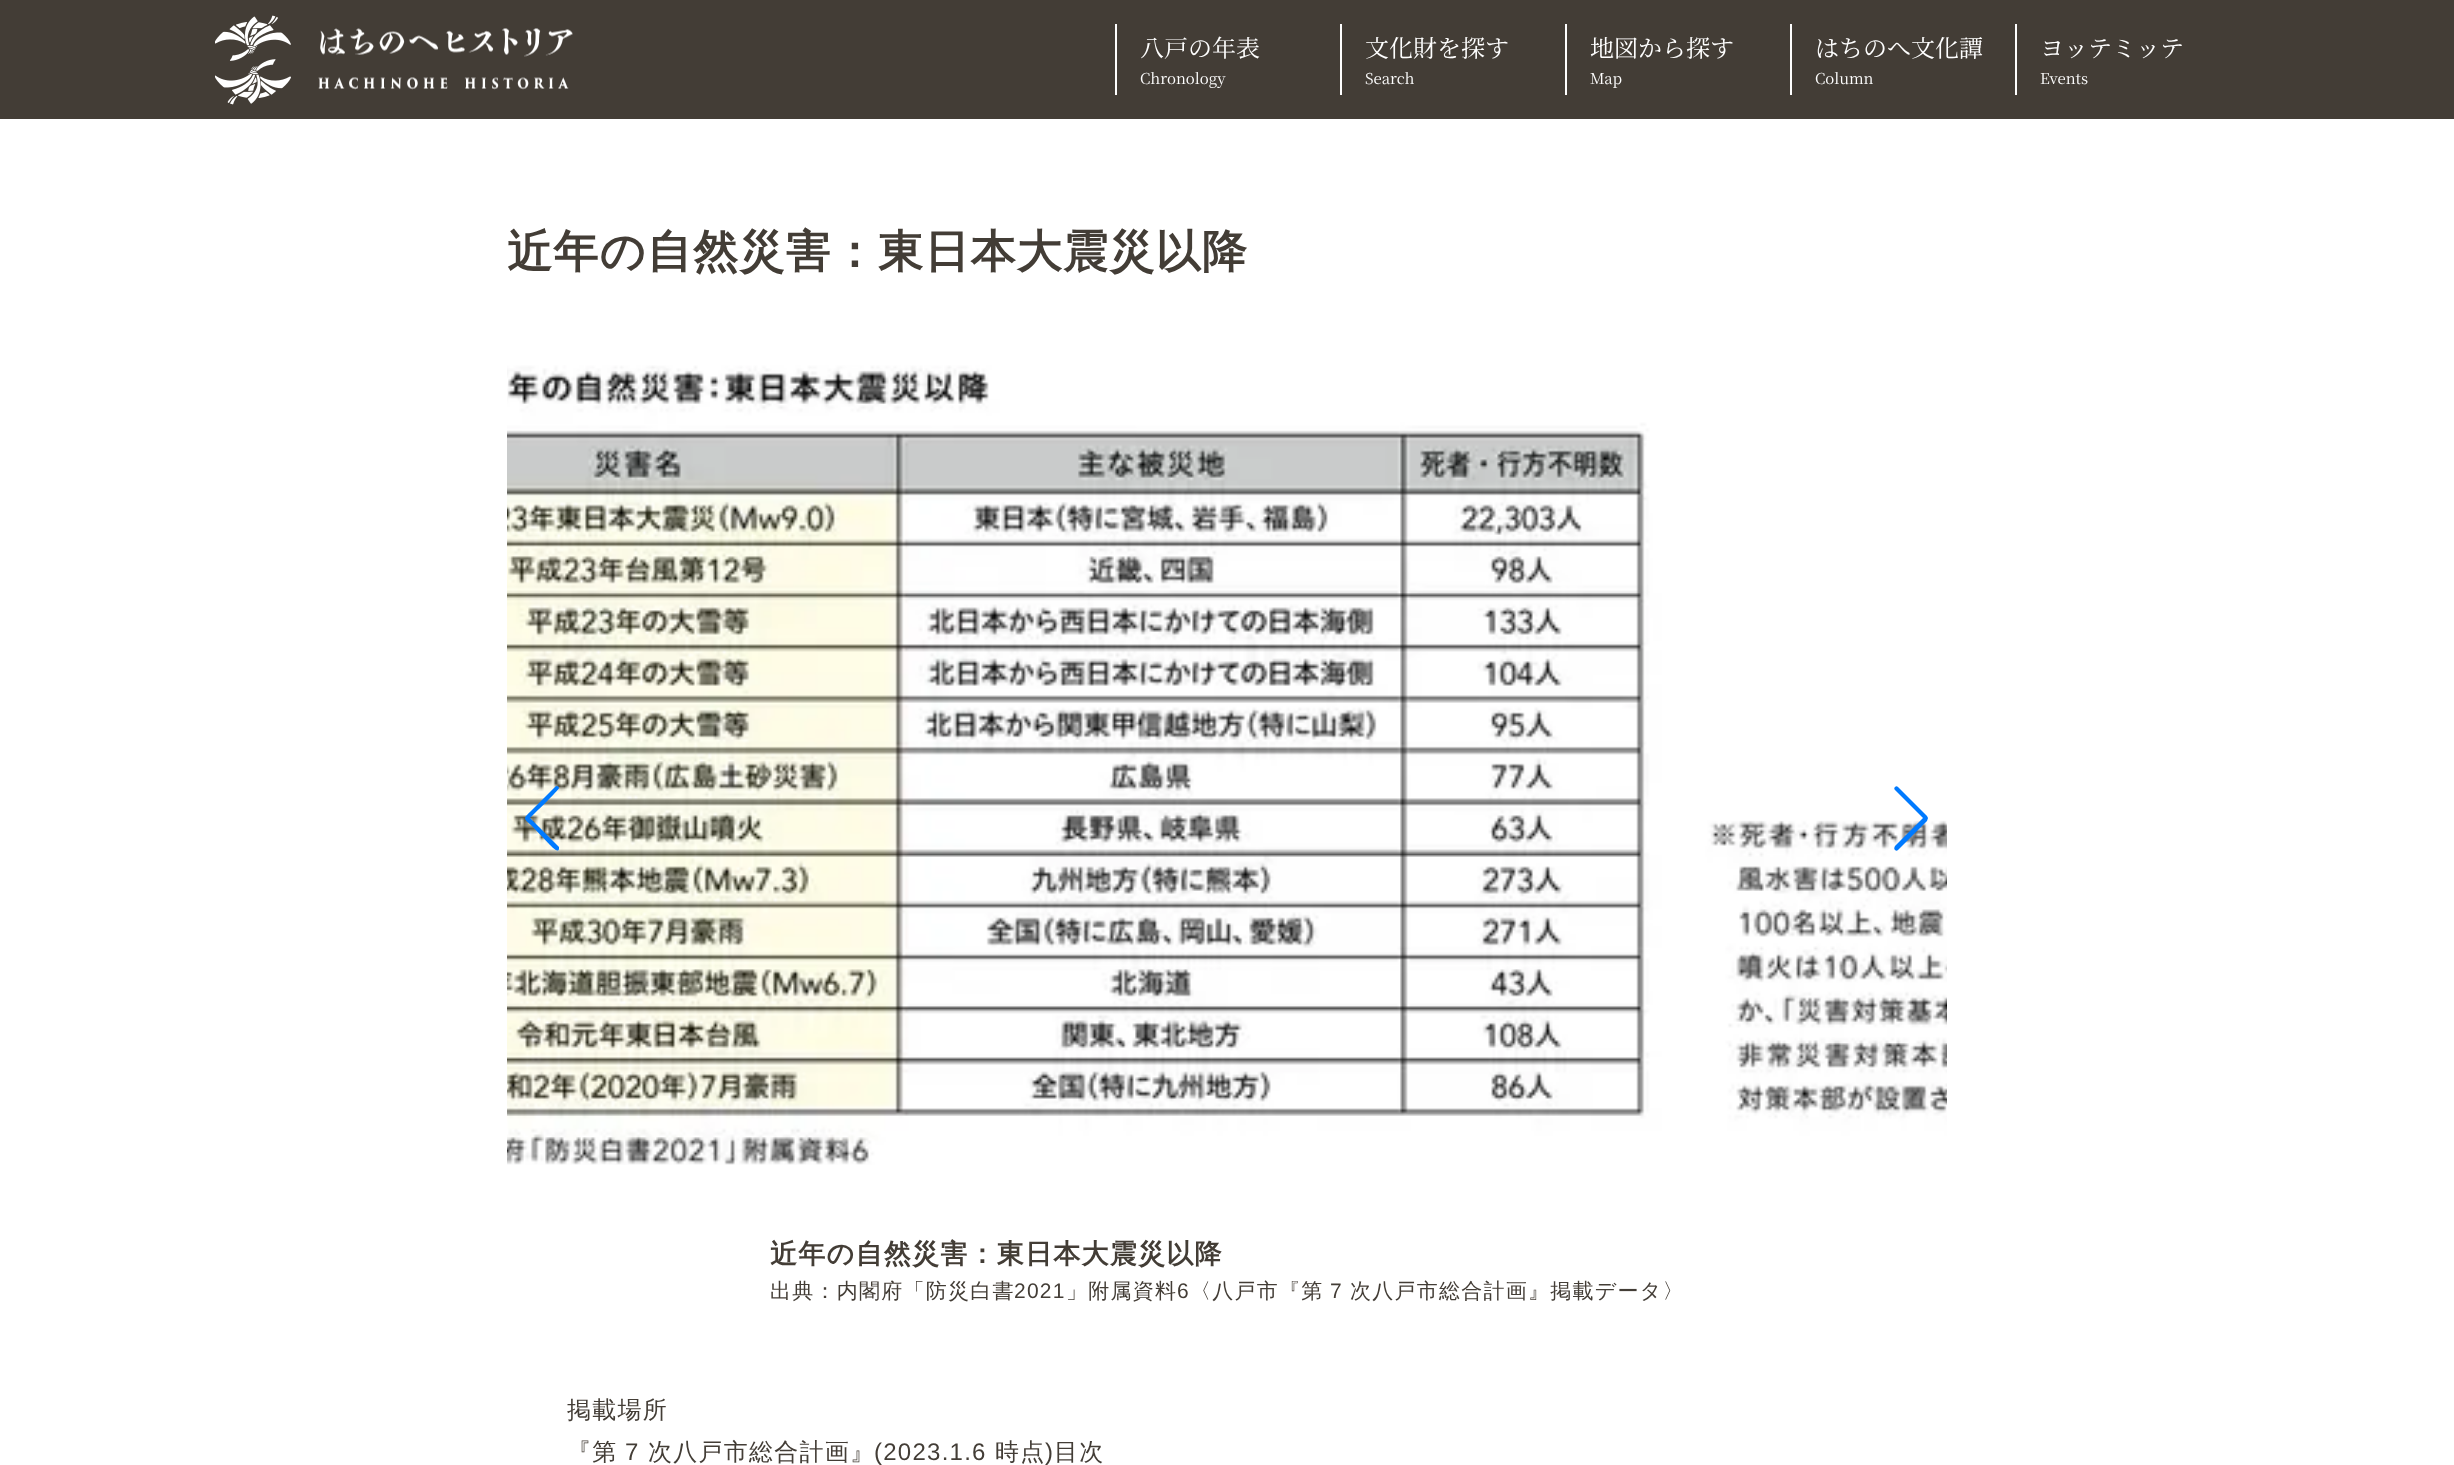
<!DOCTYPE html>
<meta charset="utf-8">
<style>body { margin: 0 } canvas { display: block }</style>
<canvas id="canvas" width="2454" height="1465"></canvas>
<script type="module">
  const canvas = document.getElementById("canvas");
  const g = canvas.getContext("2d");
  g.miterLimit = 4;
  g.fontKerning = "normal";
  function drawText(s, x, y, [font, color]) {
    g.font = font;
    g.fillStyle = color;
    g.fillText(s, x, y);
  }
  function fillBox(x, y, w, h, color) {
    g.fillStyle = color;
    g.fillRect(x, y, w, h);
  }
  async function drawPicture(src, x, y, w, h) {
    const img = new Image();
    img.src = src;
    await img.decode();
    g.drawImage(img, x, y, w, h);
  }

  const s1 = ["24px Noto Serif JP", "#FFFFFF"];
  const s2 = ["15px Noto Serif JP", "#FFFFFF"];
  const s3 = ["bold 45px WenQuanYi Zen Hei", "#433D36"];
  const s4 = ["bold 27px WenQuanYi Zen Hei", "#433D36"];
  const s5 = ["500 21px WenQuanYi Zen Hei", "#433D36"];
  const s6 = ["21px Liberation Sans", "#433D36"];
  const s7 = ["500 24px WenQuanYi Zen Hei", "#433D36"];
  const s8 = ["24px Liberation Sans", "#433D36"];

  fillBox(0, 0, 2454, 1465, "#FFFFFF");
  fillBox(0, 0, 2454, 119, "#433D36");
  await drawPicture("pic1.png", 215, 15, 76, 90);
  await drawPicture("pic2.png", 318, 28, 255, 62);
  fillBox(1115, 24, 2, 71, "#FFFFFF");
  drawText("八戸の年表", 1140, 57, s1);
  drawText("Chronology", 1140, 84, s2);
  fillBox(1340, 24, 2, 71, "#FFFFFF");
  drawText("文化財を探す", 1365, 57, s1);
  drawText("Search", 1365, 84, s2);
  fillBox(1565, 24, 2, 71, "#FFFFFF");
  drawText("地図から探す", 1590, 57, s1);
  drawText("Map", 1590, 84, s2);
  fillBox(1790, 24, 2, 71, "#FFFFFF");
  drawText("はちのへ文化譚", 1815, 57, s1);
  drawText("Column", 1815, 84, s2);
  fillBox(2015, 24, 2, 71, "#FFFFFF");
  drawText("ヨッテミッテ", 2040, 57, s1);
  drawText("Events", 2040, 84, s2);
  g.letterSpacing = "1.25px";
  drawText("近年の自然災害：東日本大震災以降", 507, 267, s3);
  await drawPicture("pic3.png", 507, 365, 1440, 800);
  g.fillStyle = "#007AFF";
  g.beginPath();
  g.moveTo(555, 787);
  g.bezierCurveTo(556, 785, 559, 786, 559, 788);
  g.bezierCurveTo(559, 790, 533, 815, 530, 818);
  g.lineTo(559, 847);
  g.lineTo(559, 849);
  g.bezierCurveTo(558, 853, 553, 848, 550, 845);
  g.lineTo(531, 825);
  g.bezierCurveTo(523, 818, 523, 819, 531, 811);
  g.closePath();
  g.fill();
  g.beginPath();
  g.moveTo(1895, 850);
  g.bezierCurveTo(1894, 849, 1894, 848, 1895, 846);
  g.lineTo(1923, 818);
  g.lineTo(1895, 790);
  g.bezierCurveTo(1894, 789, 1894, 788, 1895, 787);
  g.bezierCurveTo(1896, 786, 1897, 786, 1898, 787);
  g.lineTo(1927, 816);
  g.lineTo(1928, 818);
  g.lineTo(1927, 821);
  g.lineTo(1898, 850);
  g.bezierCurveTo(1897, 851, 1896, 851, 1895, 850);
  g.closePath();
  g.fill();
  drawText("近年の自然災害：東日本大震災以降", 770, 1263, s4);
  drawText("出典：内閣府「防災白書", 770, 1298, s5);
  drawText("2021", 1014, 1298, s6);
  drawText("」附属資料", 1066, 1298, s5);
  drawText("6", 1177, 1298, s6);
  drawText("〈八戸市『第", 1190, 1298, s5);
  drawText("7", 1330, 1298, s6);
  drawText("次八戸市総合計画』掲載データ〉", 1350, 1298, s5);
  drawText("掲載場所", 567, 1418, s7);
  drawText("『第", 567, 1460, s7);
  drawText("7", 625, 1460, s8);
  drawText("次八戸市総合計画』", 648, 1460, s7);
  drawText("(2023.1.6", 874, 1460, s8);
  drawText("時点", 995, 1460, s7);
  drawText(")", 1045, 1460, s8);
  drawText("目次", 1054, 1460, s7);
</script>
